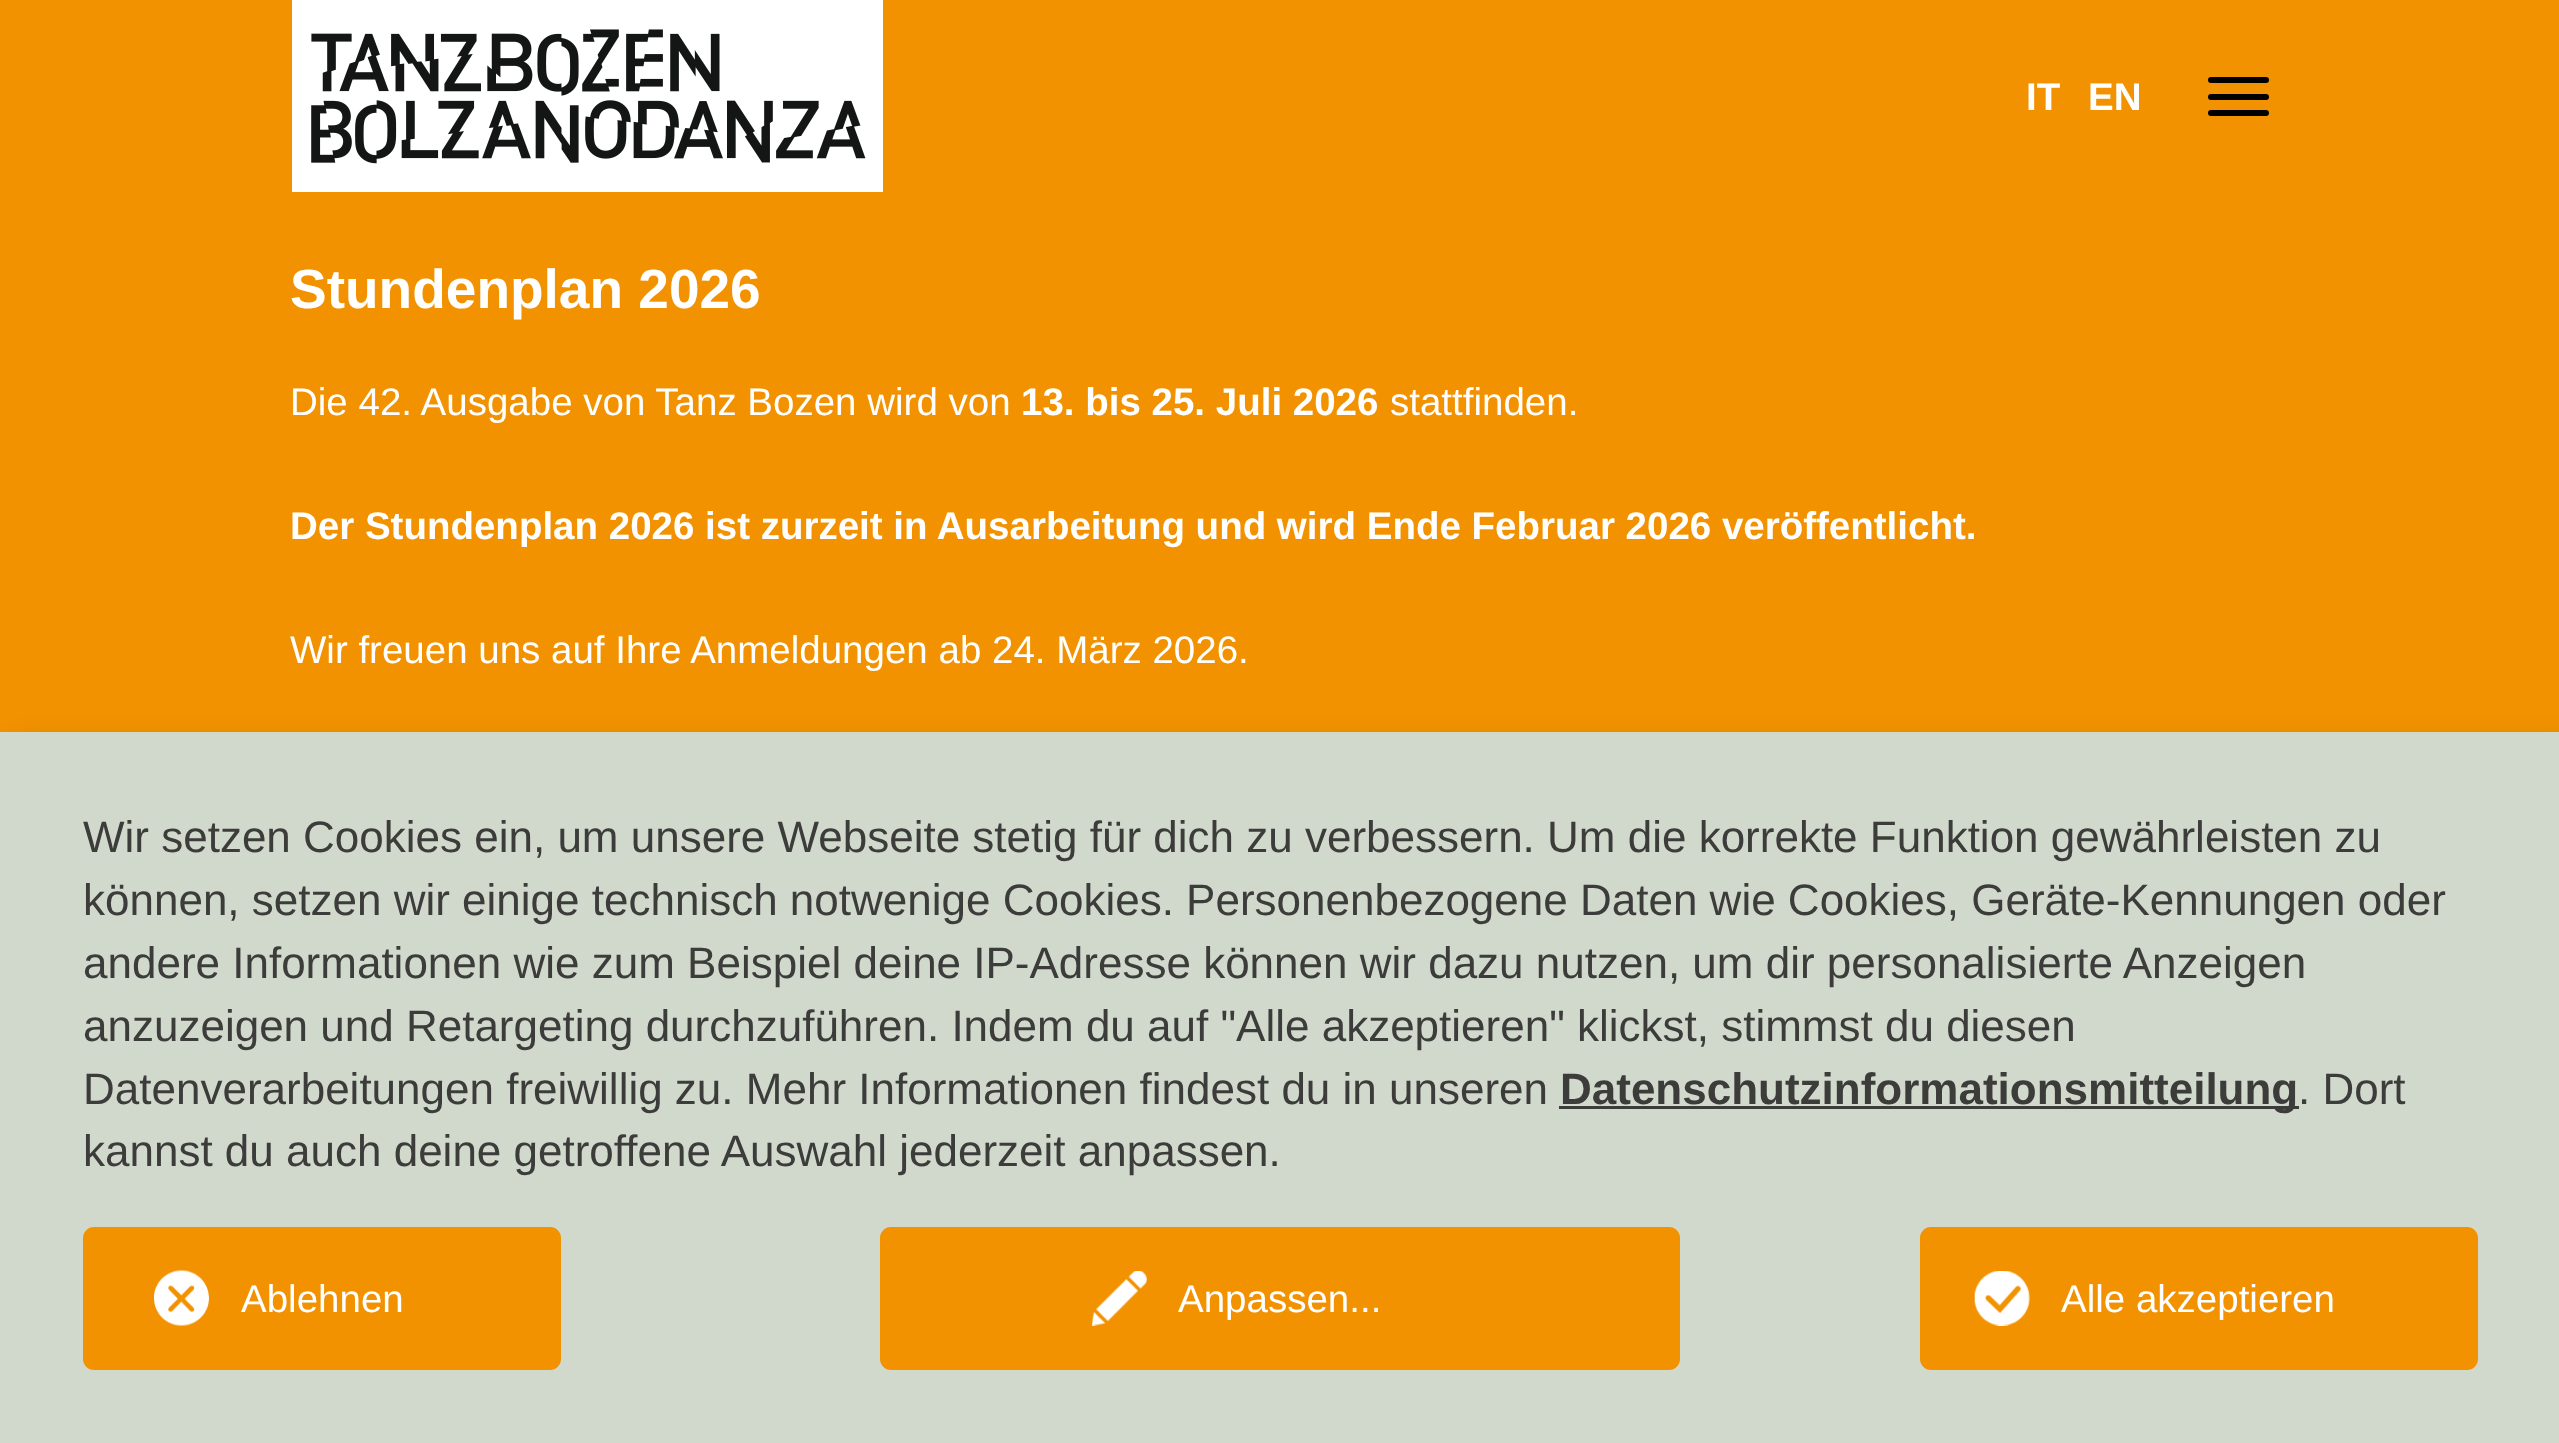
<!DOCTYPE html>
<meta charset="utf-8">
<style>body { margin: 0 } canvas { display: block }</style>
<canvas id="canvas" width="2559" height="1443"></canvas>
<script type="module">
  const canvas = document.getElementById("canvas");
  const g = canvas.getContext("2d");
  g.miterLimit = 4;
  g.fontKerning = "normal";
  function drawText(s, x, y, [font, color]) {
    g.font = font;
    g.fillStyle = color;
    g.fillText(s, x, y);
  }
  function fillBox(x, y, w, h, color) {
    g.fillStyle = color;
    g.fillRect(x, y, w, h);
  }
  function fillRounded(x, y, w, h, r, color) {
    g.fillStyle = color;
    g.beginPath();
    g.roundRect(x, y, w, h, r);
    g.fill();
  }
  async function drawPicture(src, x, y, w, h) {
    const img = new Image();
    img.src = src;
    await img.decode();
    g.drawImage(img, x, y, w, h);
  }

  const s1 = ["bold 38.5px Liberation Sans", "#FFFFFF"];
  const s2 = ["bold 55px Liberation Sans", "#FFFFFF"];
  const s3 = ["38.5px Liberation Sans", "#FFFFFF"];
  const s4 = ["44px Liberation Sans", "#3C3C3B"];
  const s5 = ["bold 44px Liberation Sans", "#3C3C3B"];

  fillBox(0, 0, 2559, 1443, "#F29201");
  await drawPicture("pic1.png", 292, 0, 591, 192);
  drawText("IT", 2026, 110, s1);
  drawText("EN", 2088, 110, s1);
  fillRounded(2208, 77, 61, 6, 3, "#000000");
  fillRounded(2208, 94, 61, 6, 3, "#000000");
  fillRounded(2208, 110, 61, 6, 3, "#000000");
  drawText("Stundenplan 2026", 290, 308, s2);
  drawText("Die 42. Ausgabe von Tanz Bozen wird von", 290, 415, s3);
  drawText("13. bis 25. Juli 2026", 1021, 415, s1);
  drawText("stattfinden.", 1390, 415, s3);
  drawText("Der Stundenplan 2026 ist zurzeit in Ausarbeitung und wird Ende Februar 2026 veröffentlicht.", 290, 539, s1);
  drawText("Wir freuen uns auf Ihre Anmeldungen ab 24. März 2026.", 290, 663, s3);
  g.fillStyle = "rgba(0, 0, 0, 0.19)";
  g.filter = "blur(14px)";
  g.beginPath();
  g.rect(14, 745, 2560, 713);
  g.fill();
  g.filter = "none";
  fillBox(0, 732, 2559, 711, "#D1D9CC");
  drawText("Wir setzen Cookies ein, um unsere Webseite stetig für dich zu verbessern. Um die korrekte Funktion gewährleisten zu", 83, 852, s4);
  drawText("können, setzen wir einige technisch notwenige Cookies. Personenbezogene Daten wie Cookies, Geräte-Kennungen oder", 83, 915, s4);
  drawText("andere Informationen wie zum Beispiel deine IP-Adresse können wir dazu nutzen, um dir personalisierte Anzeigen", 83, 978, s4);
  drawText("anzuzeigen und Retargeting durchzuführen. Indem du auf \"Alle akzeptieren\" klickst, stimmst du diesen", 83, 1041, s4);
  drawText("Datenverarbeitungen freiwillig zu. Mehr Informationen findest du in unseren", 83, 1104, s4);
  fillBox(1559, 1106, 740, 3, "#3C3C3B");
  drawText("Datenschutzinformationsmitteilung", 1560, 1104, s5);
  drawText(". Dort", 2298, 1104, s4);
  drawText("kannst du auch deine getroffene Auswahl jederzeit anpassen.", 83, 1166, s4);
  g.fillStyle = "#F29201";
  g.beginPath();
  g.roundRect(86, 1230, 472, 137, 8);
  g.fill();
  g.strokeStyle = "#F29201";
  g.lineWidth = 6;
  g.stroke();
  await drawPicture("pic2.png", 154, 1270, 55, 56);
  drawText("Ablehnen", 241, 1312, s3);
  g.fillStyle = "#F29201";
  g.beginPath();
  g.roundRect(1923, 1230, 552, 137, 8);
  g.fill();
  g.stroke();
  await drawPicture("pic3.png", 1974, 1271, 56, 55);
  drawText("Alle akzeptieren", 2061, 1312, s3);
  g.fillStyle = "#F29201";
  g.beginPath();
  g.roundRect(883, 1230, 794, 137, 8);
  g.fill();
  g.stroke();
  await drawPicture("pic4.png", 1092, 1271, 55, 55);
  drawText("Anpassen...", 1178, 1312, s3);
</script>
